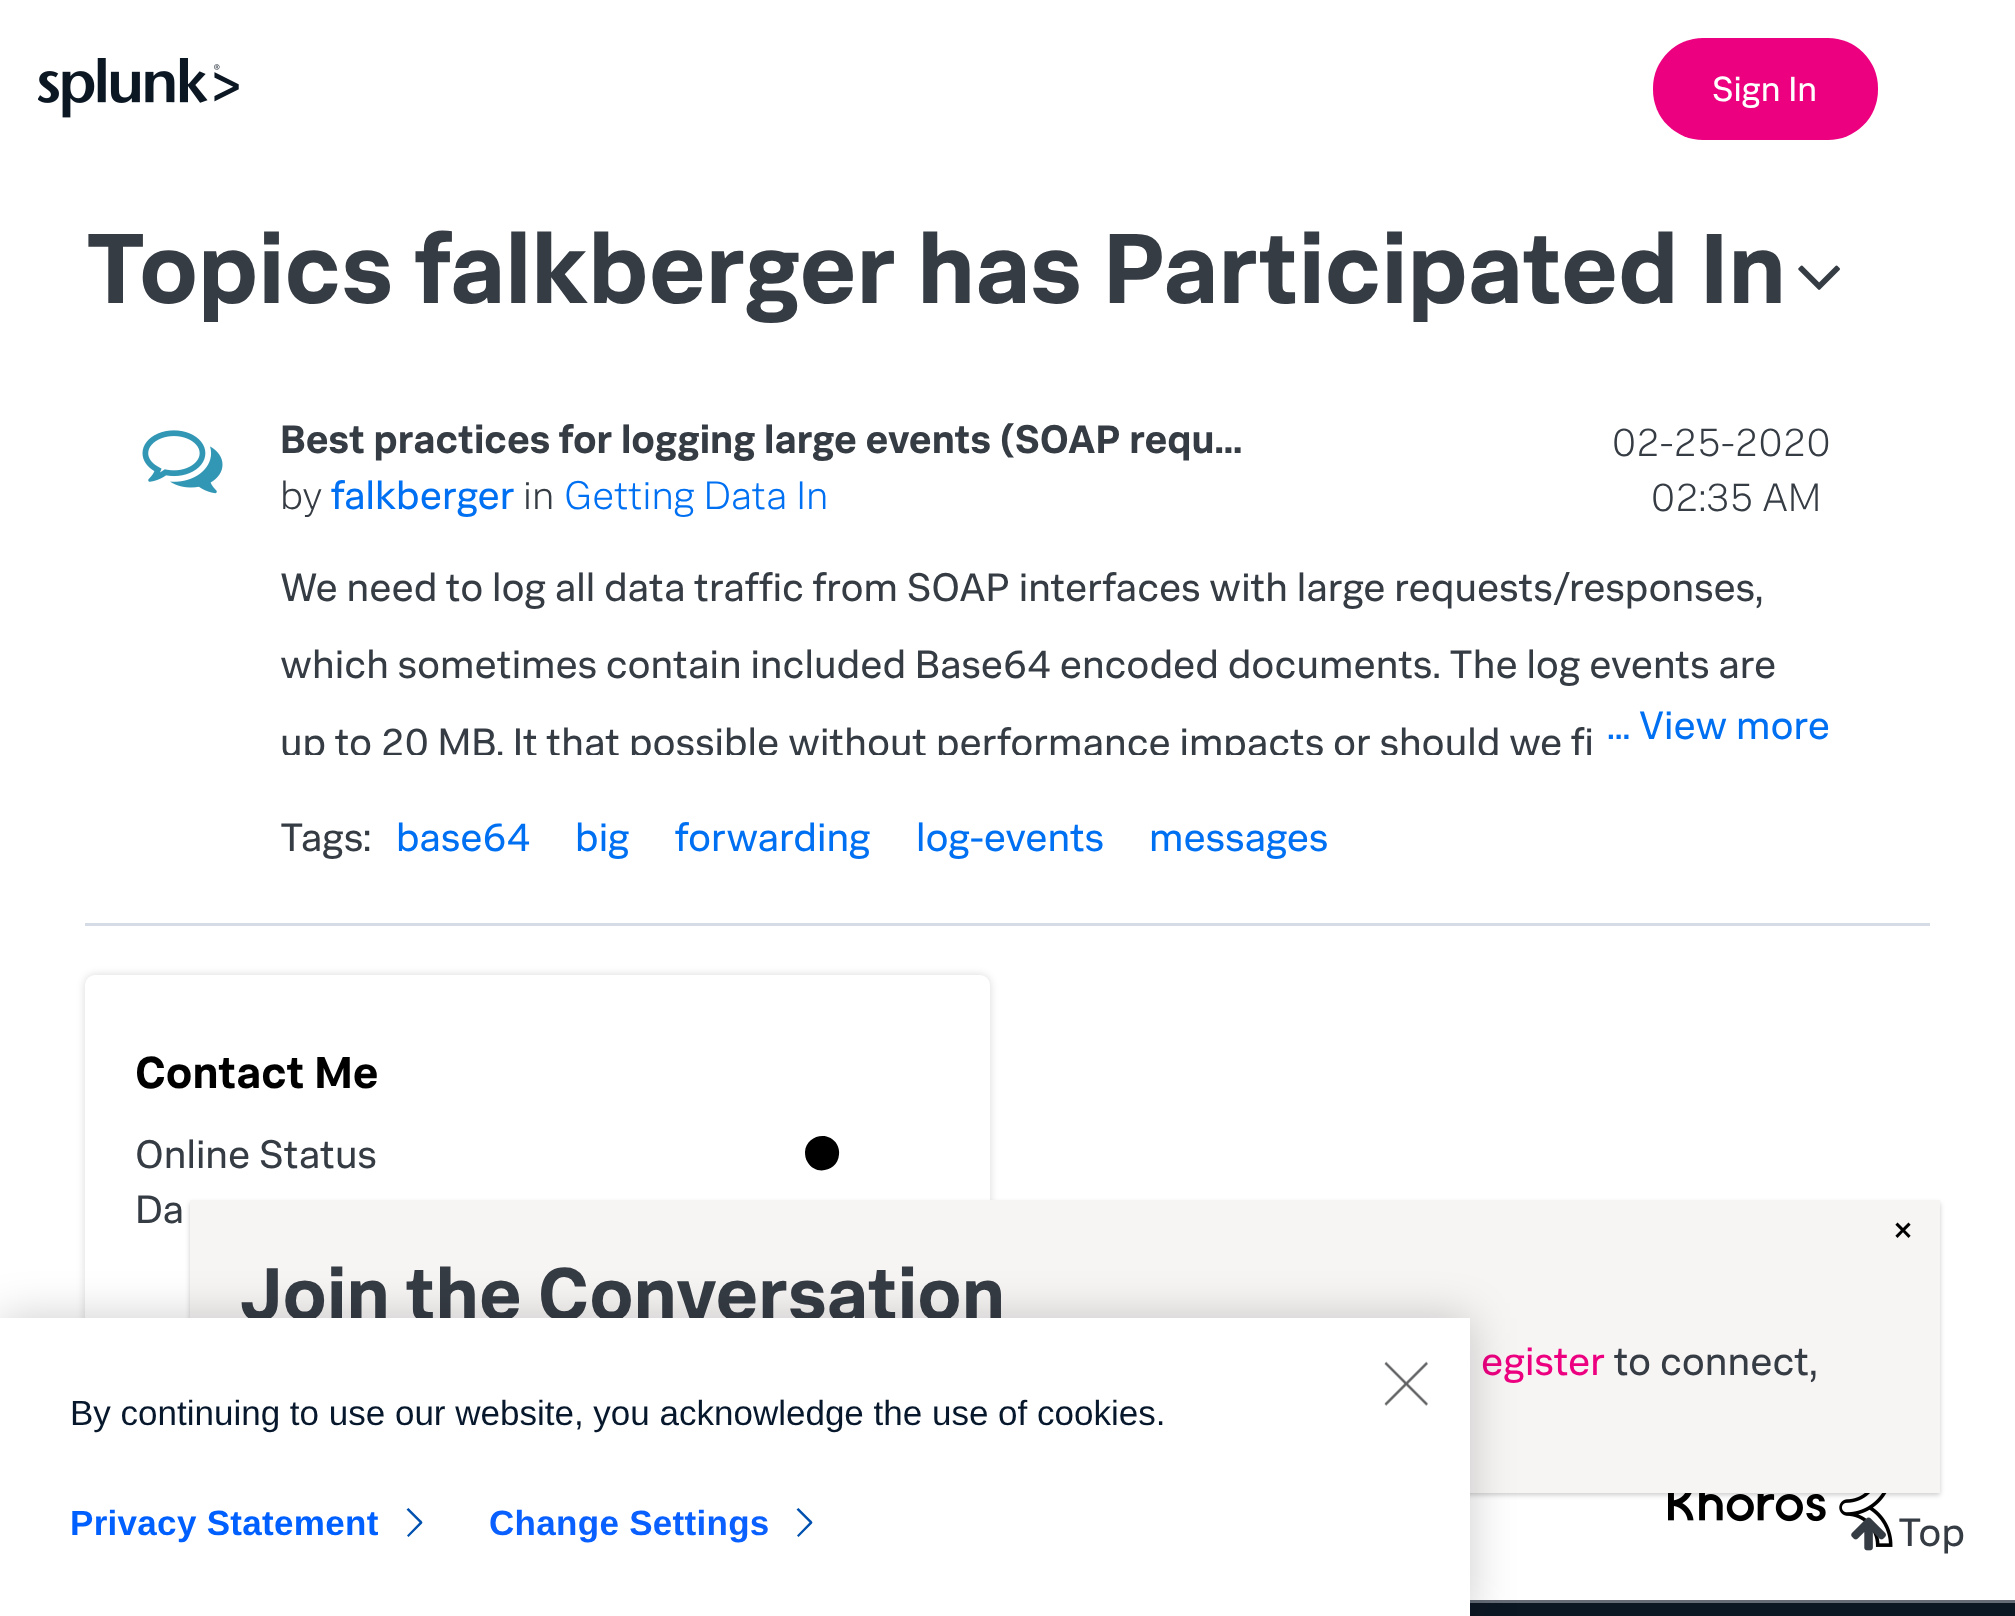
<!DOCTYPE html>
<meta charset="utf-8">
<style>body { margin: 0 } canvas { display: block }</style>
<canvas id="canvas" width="2015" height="1616"></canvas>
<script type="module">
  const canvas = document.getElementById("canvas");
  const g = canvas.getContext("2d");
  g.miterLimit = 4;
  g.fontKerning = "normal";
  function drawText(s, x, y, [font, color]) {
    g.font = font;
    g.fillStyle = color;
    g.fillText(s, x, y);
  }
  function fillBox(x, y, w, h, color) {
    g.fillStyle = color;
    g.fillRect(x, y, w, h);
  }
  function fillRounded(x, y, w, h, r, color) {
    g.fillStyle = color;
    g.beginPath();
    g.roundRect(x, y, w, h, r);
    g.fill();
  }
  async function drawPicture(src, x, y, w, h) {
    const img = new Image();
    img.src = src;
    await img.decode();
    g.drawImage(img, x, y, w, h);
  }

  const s1 = ["35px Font", "#FFFFFF"];
  const s2 = ["40px Font", "#000000"];
  const s3 = ["bold 75px Font", "#363C44"];
  const s4 = ["40px Font", "#ED0080"];
  const s5 = ["40px Font", "#363C44"];
  const s6 = ["bold 100px Font", "#363C44"];
  const s7 = ["bold 40px Font", "#363C44"];
  const s8 = ["300 40px Font", "#363C44"];
  const s9 = ["40px Font", "#0070F3"];
  const s10 = ["300 40px Font", "#0070F3"];
  const s11 = ["bold 45px Font", "#000000"];
  const s12 = ["35px Liberation Sans", "#07182D"];
  const s13 = ["bold 35px Liberation Sans", "#0060FF"];
  const s14 = ["bold 35px Liberation Sans", "#0A60FF"];

  fillBox(0, 0, 2015, 1616, "#FFFFFF");
  await drawPicture("pic1.png", 38, 58, 201, 60);
  fillRounded(1653, 38, 225, 102, 50, "#ED0080");
  drawText("Sign In", 1712, 101, s1);
  g.fillStyle = "rgba(0, 0, 0, 0.15)";
  g.filter = "blur(4px)";
  g.beginPath();
  g.roundRect(85, 975, 905, 360, 10);
  g.fill();
  g.filter = "none";
  fillRounded(85, 975, 905, 360, 10, "#FFFFFF");
  await drawPicture("pic4.png", 1668, 1493, 225, 54);
  g.fillStyle = "rgba(0, 0, 0, 0.2)";
  g.filter = "blur(2.5px)";
  g.beginPath();
  g.rect(190, 1203, 1750, 292);
  g.fill();
  g.filter = "none";
  fillBox(190, 1200, 1750, 293, "#F7F4F4");
  drawText("×", 1891, 1243, s2);
  drawText("Join the Conversation", 240, 1320, s3);
  drawText("egister", 1481, 1375, s4);
  drawText("to connect,", 1614, 1375, s5);
  drawText("Topics falkberger has Participated In", 85, 303, s6);
  await drawPicture("pic2.png", 1798, 265, 42, 25);
  fillBox(85, 923, 1845, 3, "#D5DCE5");
  await drawPicture("pic3.png", 142, 430, 81, 64);
  drawText("Best practices for logging large events (SOAP requ...", 280, 453, s7);
  drawText("by", 280, 509, s8);
  drawText("falkberger", 331, 509, s9);
  drawText("in", 523, 509, s8);
  drawText("Getting Data In", 564, 509, s10);
  drawText("02-25-2020", 1612, 456, s8);
  drawText("02:35 AM", 1651, 511, s8);
  drawText("We need to log all data traffic from SOAP interfaces with large requests/responses,", 280, 601, s5);
  drawText("which sometimes contain included Base64 encoded documents. The log events are", 280, 678, s5);
  g.save();
  g.beginPath();
  g.rect(280, 548, 1550, 207);
  g.clip();
  drawText("up to 20 MB. It that possible without performance impacts or should we fi", 280, 756, s5);
  g.restore();
  drawText("... View more", 1607, 739, s9);
  drawText("Tags:", 280, 851, s5);
  drawText("base64", 396, 851, s9);
  drawText("big", 575, 851, s9);
  drawText("forwarding", 675, 851, s9);
  drawText("log-events", 916, 851, s9);
  drawText("messages", 1149, 851, s9);
  drawText("Contact Me", 135, 1088, s11);
  drawText("Online Status", 135, 1168, s5);
  g.fillStyle = "#000000";
  g.beginPath();
  g.moveTo(837, 1144.5);
  g.bezierCurveTo(838.5, 1147.5, 839.5, 1151, 839, 1154.5);
  g.bezierCurveTo(838, 1171, 815.5, 1176.5, 807.5, 1162);
  g.bezierCurveTo(805.5, 1159, 805, 1155.5, 805, 1152);
  g.bezierCurveTo(806, 1135.5, 828.5, 1130, 837, 1144.5);
  g.closePath();
  g.fill();
  drawText("Da", 135, 1223, s5);
  await drawPicture("pic5.png", 1851, 1517, 35, 34);
  drawText("Top", 1898, 1546, s5);
  fillBox(1470, 1603, 545, 13, "#0C1724");
  fillBox(1470, 1600, 545, 3, "#656C76");
  g.fillStyle = "rgba(0, 0, 0, 0.2)";
  g.filter = "blur(22.5px)";
  g.beginPath();
  g.rect(0, 1318, 1470, 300);
  g.fill();
  g.filter = "none";
  fillBox(0, 1318, 1470, 298, "#FFFFFF");
  await drawPicture("pic6.png", 1384, 1361, 44, 45);
  drawText("By continuing to use our website, you acknowledge the use of cookies.", 70, 1425, s12);
  g.letterSpacing = "0.3px";
  drawText("Privacy Statement", 70, 1535, s13);
  g.fillStyle = "#0051AF";
  g.beginPath();
  g.moveTo(408.5, 1537);
  g.lineTo(407, 1535.5);
  g.lineTo(419.5, 1522.5);
  g.lineTo(406.5, 1509.5);
  g.lineTo(408.5, 1508);
  g.lineTo(420, 1519.5);
  g.bezierCurveTo(420.5, 1520, 423.5, 1522, 422, 1523.5);
  g.closePath();
  g.fill();
  drawText("Change Settings", 489, 1535, s14);
  g.fillStyle = "#0051AF";
  g.beginPath();
  g.moveTo(798.5, 1537);
  g.lineTo(797, 1535.5);
  g.lineTo(809.5, 1522.5);
  g.lineTo(796.5, 1509.5);
  g.lineTo(798.5, 1508);
  g.lineTo(810, 1519.5);
  g.bezierCurveTo(810.5, 1520, 813.5, 1522, 812, 1523.5);
  g.closePath();
  g.fill();
</script>
